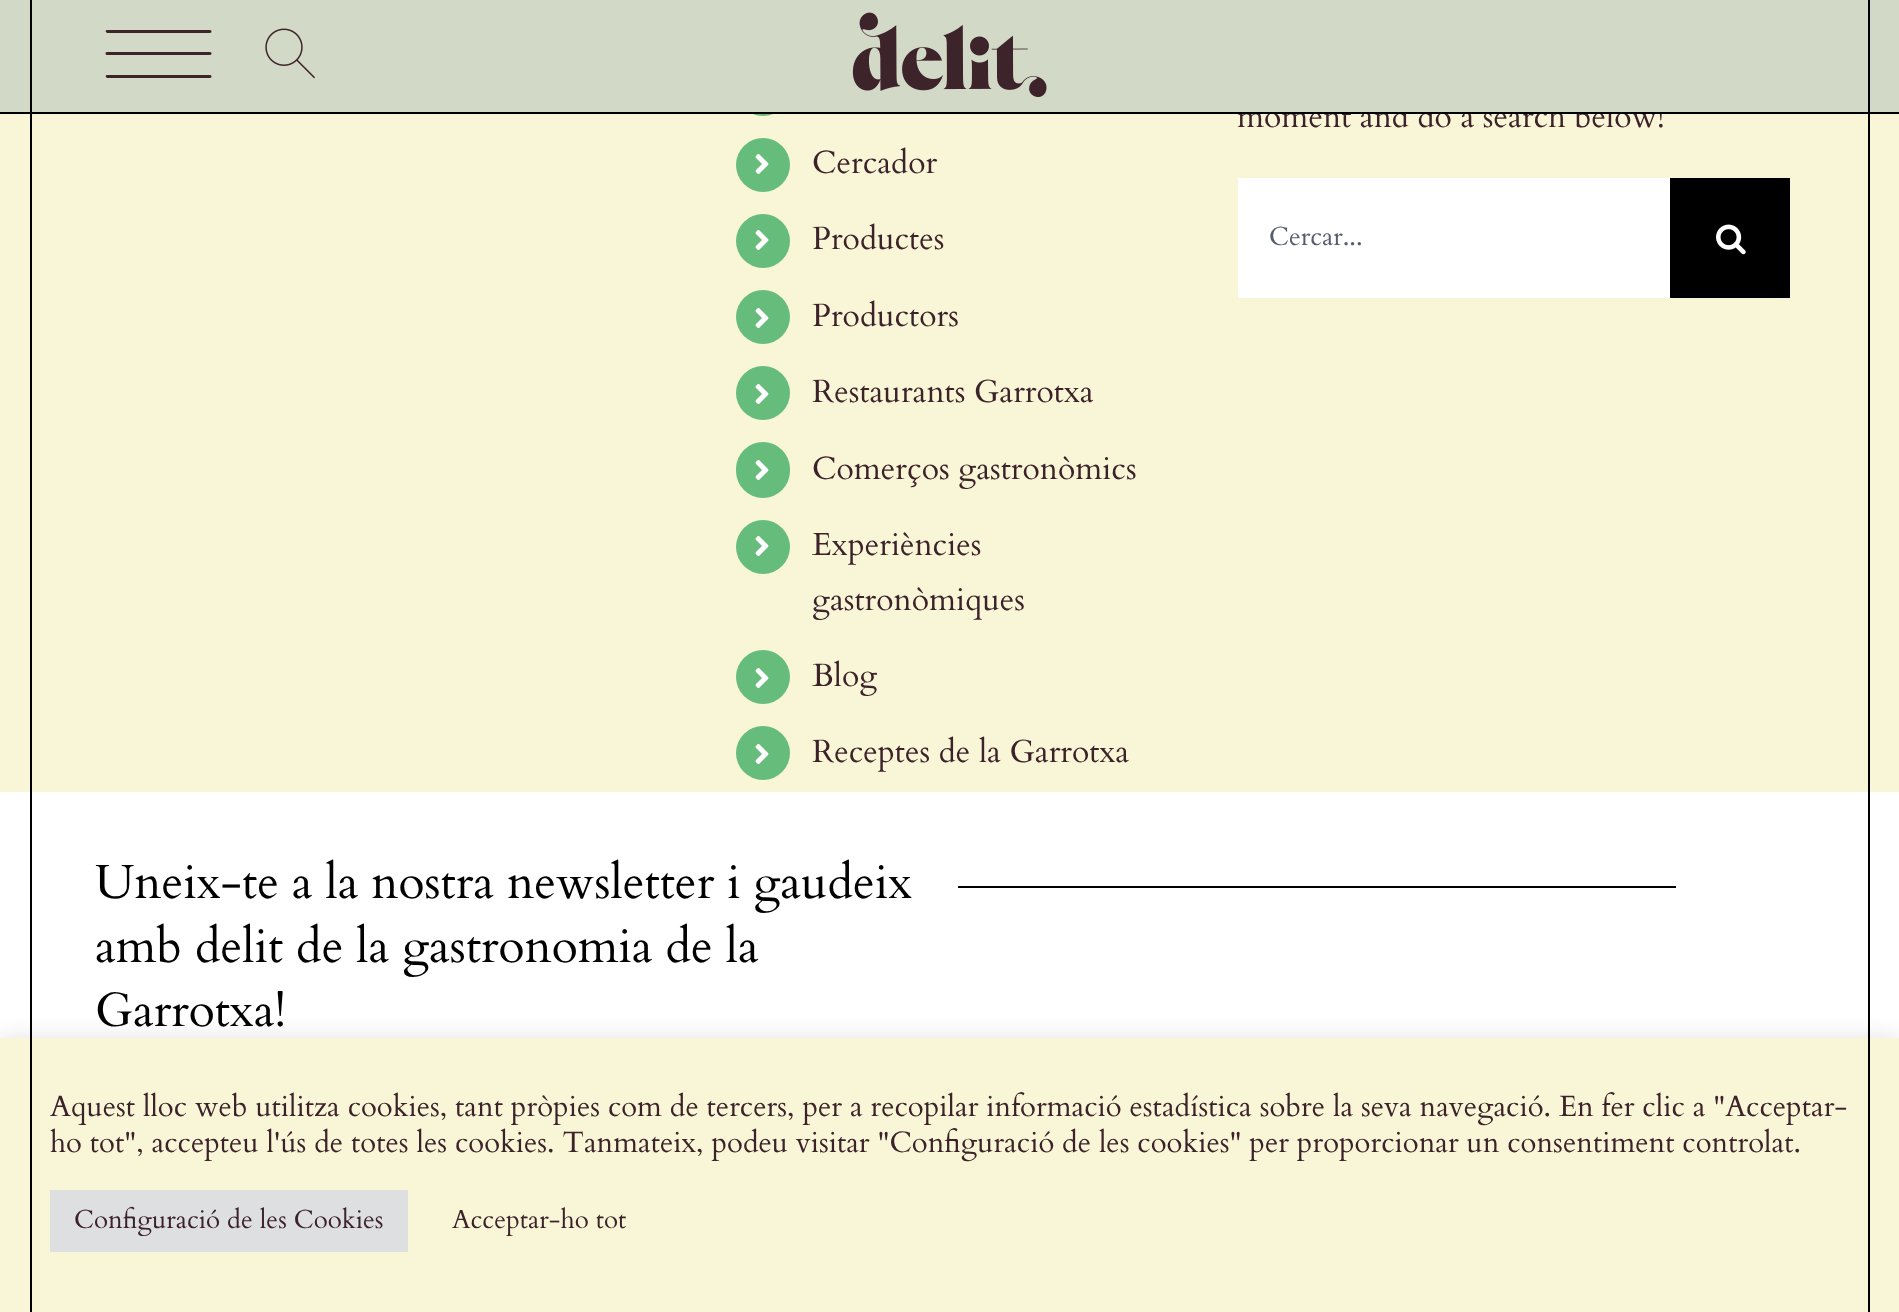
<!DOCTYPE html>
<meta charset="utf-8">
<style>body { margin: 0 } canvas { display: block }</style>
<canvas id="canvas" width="1899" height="1312"></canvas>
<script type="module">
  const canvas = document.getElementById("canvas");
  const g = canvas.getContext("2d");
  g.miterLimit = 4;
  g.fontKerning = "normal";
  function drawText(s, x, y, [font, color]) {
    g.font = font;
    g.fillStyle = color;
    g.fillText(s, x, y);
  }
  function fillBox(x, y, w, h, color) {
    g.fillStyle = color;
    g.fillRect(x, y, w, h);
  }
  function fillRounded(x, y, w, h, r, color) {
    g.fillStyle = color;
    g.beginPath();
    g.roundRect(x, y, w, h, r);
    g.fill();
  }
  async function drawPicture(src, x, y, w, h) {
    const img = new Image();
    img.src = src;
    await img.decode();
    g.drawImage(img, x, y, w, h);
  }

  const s1 = ["32px Cardo", "#3C2229"];
  const s2 = ["26px Cardo", "#555C6E"];
  const s3 = ["48px Cardo", "#000000"];
  const s4 = ["29.33px Cardo", "#3C2229"];
  const s5 = ["26px Cardo", "#3C2229"];

  fillBox(0, 0, 1899, 1312, "#F9F5D7");
  fillRounded(736, 60, 54, 56, 27, "#65BC7B");
  drawText("moment and do a search below!", 1237, 127, s1);
  fillBox(0, 0, 1899, 112, "#D3D9C7");
  fillBox(0, 112, 1899, 2, "#000000");
  g.fillStyle = "#3D232A";
  g.beginPath();
  g.moveTo(210, 75);
  g.lineTo(107, 75);
  g.bezierCurveTo(106, 75, 105, 76, 106, 77);
  g.lineTo(107, 78);
  g.lineTo(210, 78);
  g.bezierCurveTo(212, 78, 212, 75, 210, 75);
  g.closePath();
  g.moveTo(210, 52);
  g.lineTo(107, 52);
  g.bezierCurveTo(105, 52, 105, 55, 107, 55);
  g.lineTo(210, 55);
  g.bezierCurveTo(212, 55, 212, 52, 210, 52);
  g.closePath();
  g.moveTo(210, 30);
  g.lineTo(107, 30);
  g.bezierCurveTo(106, 30, 105, 31, 106, 32);
  g.lineTo(107, 33);
  g.lineTo(210, 33);
  g.bezierCurveTo(212, 33, 212, 30, 210, 30);
  g.closePath();
  g.fill();
  await drawPicture("pic1.png", 265, 28, 50, 51);
  await drawPicture("pic2.png", 852, 12, 195, 86);
  fillBox(0, 792, 1899, 246, "#FFFFFF");
  g.fillStyle = "rgba(172, 171, 171, 0.3)";
  g.filter = "blur(10px)";
  g.beginPath();
  g.rect(0, 1036, 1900, 274);
  g.fill();
  g.filter = "none";
  fillBox(0, 1038, 1899, 274, "#F9F5D7");
  fillBox(30, 0, 2, 1312, "#000000");
  fillBox(1868, 0, 2, 1312, "#000000");
  g.fillStyle = "#65BC7B";
  g.beginPath();
  g.arc(763, 165, 27, 0, Math.PI * 2);
  g.fill();
  await drawPicture("pic3.png", 755, 154, 14, 20);
  drawText("Cercador", 812, 173, s1);
  g.fillStyle = "#65BC7B";
  g.beginPath();
  g.arc(763, 241, 27, 0, Math.PI * 2);
  g.fill();
  await drawPicture("pic3.png", 755, 230, 14, 20);
  drawText("Productes", 812, 249, s1);
  g.fillStyle = "#65BC7B";
  g.beginPath();
  g.arc(763, 317, 27, 0, Math.PI * 2);
  g.fill();
  await drawPicture("pic3.png", 755, 308, 14, 20);
  drawText("Productors", 812, 326, s1);
  g.fillStyle = "#65BC7B";
  g.beginPath();
  g.arc(763, 393, 27, 0, Math.PI * 2);
  g.fill();
  await drawPicture("pic3.png", 755, 384, 14, 20);
  drawText("Restaurants Garrotxa", 812, 402, s1);
  fillRounded(736, 442, 54, 56, 27, "#65BC7B");
  await drawPicture("pic3.png", 755, 460, 14, 20);
  drawText("Comerços gastronòmics", 812, 479, s1);
  g.fillStyle = "#65BC7B";
  g.beginPath();
  g.arc(763, 547, 27, 0, Math.PI * 2);
  g.fill();
  await drawPicture("pic3.png", 755, 536, 14, 20);
  drawText("Experiències", 812, 555, s1);
  drawText("gastronòmiques", 812, 610, s1);
  g.fillStyle = "#65BC7B";
  g.beginPath();
  g.arc(763, 677, 27, 0, Math.PI * 2);
  g.fill();
  await drawPicture("pic3.png", 755, 668, 14, 20);
  drawText("Blog", 812, 686, s1);
  g.fillStyle = "#65BC7B";
  g.beginPath();
  g.arc(763, 753, 27, 0, Math.PI * 2);
  g.fill();
  await drawPicture("pic3.png", 755, 744, 14, 20);
  drawText("Receptes de la Garrotxa", 812, 762, s1);
  fillBox(1238, 178, 432, 120, "#FFFFFF");
  drawText("Cercar...", 1269, 245, s2);
  fillBox(1670, 178, 120, 120, "#000000");
  await drawPicture("pic4.png", 1716, 224, 30, 31);
  drawText("Uneix-te a la nostra newsletter i gaudeix", 95, 898, s3);
  drawText("amb delit de la gastronomia de la", 95, 962, s3);
  drawText("Garrotxa!", 95, 1026, s3);
  fillBox(958, 886, 718, 2, "#000000");
  drawText("Aquest lloc web utilitza cookies, tant pròpies com de tercers, per a recopilar informació estadística sobre la seva navegació. En fer clic a \"Acceptar-", 50, 1116, s4);
  drawText("ho tot\", accepteu l'ús de totes les cookies. Tanmateix, podeu visitar \"Configuració de les cookies\" per proporcionar un consentiment controlat.", 50, 1152, s4);
  fillBox(50, 1190, 358, 62, "#DEDFE0");
  drawText("Configuració de les Cookies", 74, 1228, s5);
  drawText("Acceptar-ho tot", 452, 1228, s5);
</script>
